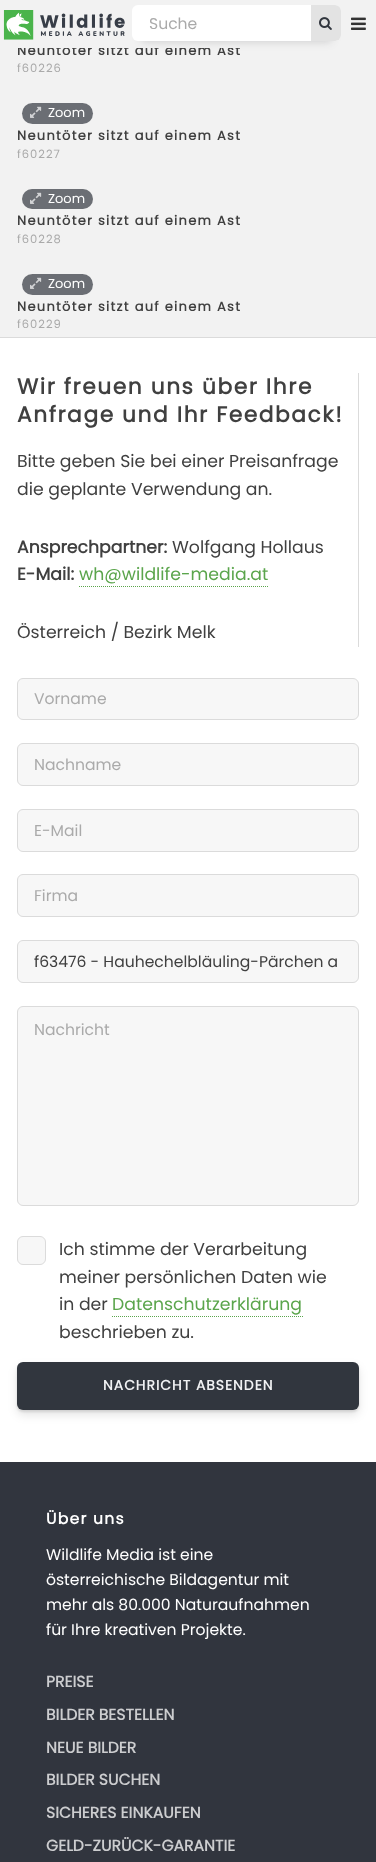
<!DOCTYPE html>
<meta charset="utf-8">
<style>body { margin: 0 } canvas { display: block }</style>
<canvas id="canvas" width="376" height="1862"></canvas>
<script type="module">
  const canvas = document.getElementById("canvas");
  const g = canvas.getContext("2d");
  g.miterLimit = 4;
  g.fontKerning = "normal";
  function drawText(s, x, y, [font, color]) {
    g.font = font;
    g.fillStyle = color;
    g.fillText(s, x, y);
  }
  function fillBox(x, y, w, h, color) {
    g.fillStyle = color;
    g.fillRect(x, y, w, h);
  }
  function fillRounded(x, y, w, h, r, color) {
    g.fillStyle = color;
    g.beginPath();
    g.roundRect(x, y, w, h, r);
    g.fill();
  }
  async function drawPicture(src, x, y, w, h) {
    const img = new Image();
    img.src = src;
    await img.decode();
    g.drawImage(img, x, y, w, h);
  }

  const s1 = ["bold 13px Poppins", "#404040"];
  const s2 = ["15.6px Poppins", "#AAAAAA"];
  const s3 = ["11.5px Poppins", "#AAAAAA"];
  const s4 = ["13px Poppins", "#FFFFFF"];
  const s5 = ["bold 21.7px Poppins", "#404040"];
  const s6 = ["17.3px Poppins", "#404040"];
  const s7 = ["bold 17.3px Poppins", "#404040"];
  const s8 = ["17.3px Poppins", "#5BA54C"];
  const s9 = ["15.6px Poppins", "#404040"];
  const s10 = ["bold 13.9px Poppins", "#F1F2F4"];
  const s11 = ["bold 15.6px Poppins", "#FFFFFF"];
  const s12 = ["15.6px Poppins", "#FFFFFF"];
  const s13 = ["bold 15.6px Poppins", "#CCCDCF"];

  fillBox(0, 0, 376, 1862, "#FFFFFF");
  fillBox(0, 48, 376, 289, "#F2F2F2");
  g.letterSpacing = "1.3px";
  drawText("Neuntöter sitzt auf einem Ast", 17, 55, s1);
  fillBox(0, 0, 376, 48, "#F2F2F2");
  await drawPicture("pic1.png", 3, 10, 122, 30);
  g.fillStyle = "rgba(33, 35, 38, 0.2)";
  g.filter = "blur(5px)";
  g.beginPath();
  g.rect(142, 25, 189, 16);
  g.fill();
  g.filter = "none";
  fillRounded(132, 5, 209, 36, 6, "#FFFFFF");
  g.letterSpacing = "0px";
  drawText("Suche", 149, 29, s2);
  g.fillStyle = "#E3E3E3";
  g.beginPath();
  g.roundRect(311, 5, 30, 36, [0, 6, 6, 0]);
  g.fill();
  await drawPicture("pic2.png", 319, 17, 13, 13);
  await drawPicture("pic3.png", 351, 17, 15, 13);
  fillBox(0, 337, 376, 1, "#DBDBDB");
  g.letterSpacing = "1px";
  drawText("f60226", 17, 72, s3);
  fillRounded(22, 103, 71, 21, 10.5, "#6B6E74");
  await drawPicture("pic4.png", 30, 106, 12, 12);
  g.letterSpacing = "0px";
  drawText("Zoom", 48, 117, s4);
  g.letterSpacing = "1.3px";
  drawText("Neuntöter sitzt auf einem Ast", 17, 140, s1);
  g.letterSpacing = "1px";
  drawText("f60227", 17, 158, s3);
  fillRounded(22, 189, 71, 20, 10, "#6B6E74");
  await drawPicture("pic4.png", 30, 192, 12, 12);
  g.letterSpacing = "0px";
  drawText("Zoom", 48, 203, s4);
  g.letterSpacing = "1.3px";
  drawText("Neuntöter sitzt auf einem Ast", 17, 225, s1);
  g.letterSpacing = "1px";
  drawText("f60228", 17, 243, s3);
  fillRounded(22, 274, 71, 21, 10.5, "#6B6E74");
  await drawPicture("pic4.png", 30, 277, 12, 12);
  g.letterSpacing = "0px";
  drawText("Zoom", 48, 288, s4);
  g.letterSpacing = "1.3px";
  drawText("Neuntöter sitzt auf einem Ast", 17, 311, s1);
  g.letterSpacing = "1px";
  drawText("f60229", 17, 328, s3);
  fillBox(358, 373, 1, 274, "#DBDBDB");
  g.letterSpacing = "1.6px";
  drawText("Wir freuen uns über Ihre", 17, 394, s5);
  drawText("Anfrage und Ihr Feedback!", 17, 422, s5);
  g.letterSpacing = "0px";
  drawText("Bitte geben Sie bei einer Preisanfrage", 17, 467, s6);
  drawText("die geplante Verwendung an.", 17, 495, s6);
  drawText("Ansprechpartner:", 17, 553, s7);
  drawText("Wolfgang Hollaus", 172, 553, s6);
  drawText("E-Mail:", 17, 580, s7);
  drawText("wh@wildlife-media.at", 79, 580, s8);
  g.beginPath();
  g.moveTo(79, 586.5);
  g.lineTo(269, 586.5);
  g.strokeStyle = "#5BA54C";
  g.setLineDash([1, 1]);
  g.stroke();
  drawText("Österreich / Bezirk Melk", 17, 638, s6);
  g.fillStyle = "#F7F7F7";
  g.beginPath();
  g.roundRect(17.5, 678.5, 341, 41, 5.5);
  g.fill();
  g.strokeStyle = "#DBDBDB";
  g.setLineDash([]);
  g.stroke();
  drawText("Vorname", 34, 704, s2);
  g.fillStyle = "#F7F7F7";
  g.beginPath();
  g.roundRect(17.5, 743.5, 341, 42, 5.5);
  g.fill();
  g.stroke();
  drawText("Nachname", 34, 770, s2);
  g.fillStyle = "#F7F7F7";
  g.beginPath();
  g.roundRect(17.5, 809.5, 341, 42, 5.5);
  g.fill();
  g.stroke();
  drawText("E-Mail", 34, 836, s2);
  g.fillStyle = "#F7F7F7";
  g.beginPath();
  g.roundRect(17.5, 874.5, 341, 42, 5.5);
  g.fill();
  g.stroke();
  drawText("Firma", 34, 901, s2);
  g.fillStyle = "#F7F7F7";
  g.beginPath();
  g.roundRect(17.5, 940.5, 341, 42, 5.5);
  g.fill();
  g.stroke();
  drawText("f63476 - Hauhechelbläuling-Pärchen a", 34, 967, s9);
  g.fillStyle = "#F7F7F7";
  g.beginPath();
  g.roundRect(17.5, 1006.5, 341, 199, 5.5);
  g.fill();
  g.stroke();
  drawText("Nachricht", 34, 1035, s2);
  g.fillStyle = "#F7F7F7";
  g.beginPath();
  g.roundRect(17.5, 1236.5, 28, 28, 5.5);
  g.fill();
  g.stroke();
  drawText("Ich stimme der Verarbeitung", 59, 1255, s6);
  drawText("meiner persönlichen Daten wie", 59, 1283, s6);
  drawText("in der", 59, 1310, s6);
  drawText("Datenschutzerklärung", 112, 1310, s8);
  g.beginPath();
  g.moveTo(112, 1316.5);
  g.lineTo(303, 1316.5);
  g.strokeStyle = "#5BA54C";
  g.setLineDash([1, 1]);
  g.stroke();
  drawText("beschrieben zu.", 59, 1338, s6);
  g.fillStyle = "rgba(0, 0, 0, 0.1)";
  g.filter = "blur(1px)";
  g.beginPath();
  g.roundRect(17, 1364, 342, 48, 6);
  g.fill();
  g.filter = "none";
  g.filter = "blur(5px)";
  g.beginPath();
  g.roundRect(17, 1367, 342, 48, 6);
  g.fill();
  g.filter = "none";
  fillRounded(17, 1362, 342, 48, 6, "#31363E");
  g.letterSpacing = "1px";
  drawText("NACHRICHT ABSENDEN", 103, 1390, s10);
  fillBox(0, 1462, 376, 400, "#31353E");
  g.letterSpacing = "1.25px";
  drawText("Über uns", 46, 1524, s11);
  g.letterSpacing = "0px";
  drawText("Wildlife Media ist eine", 46, 1560, s12);
  drawText("österreichische Bildagentur mit", 46, 1585, s12);
  drawText("mehr als 80.000 Naturaufnahmen", 46, 1610, s12);
  drawText("für Ihre kreativen Projekte.", 46, 1635, s12);
  drawText("PREISE", 46, 1687, s13);
  drawText("BILDER BESTELLEN", 46, 1720, s13);
  drawText("NEUE BILDER", 46, 1753, s13);
  drawText("BILDER SUCHEN", 46, 1785, s13);
  drawText("SICHERES EINKAUFEN", 46, 1818, s13);
  drawText("GELD-ZURÜCK-GARANTIE", 46, 1851, s13);
</script>
